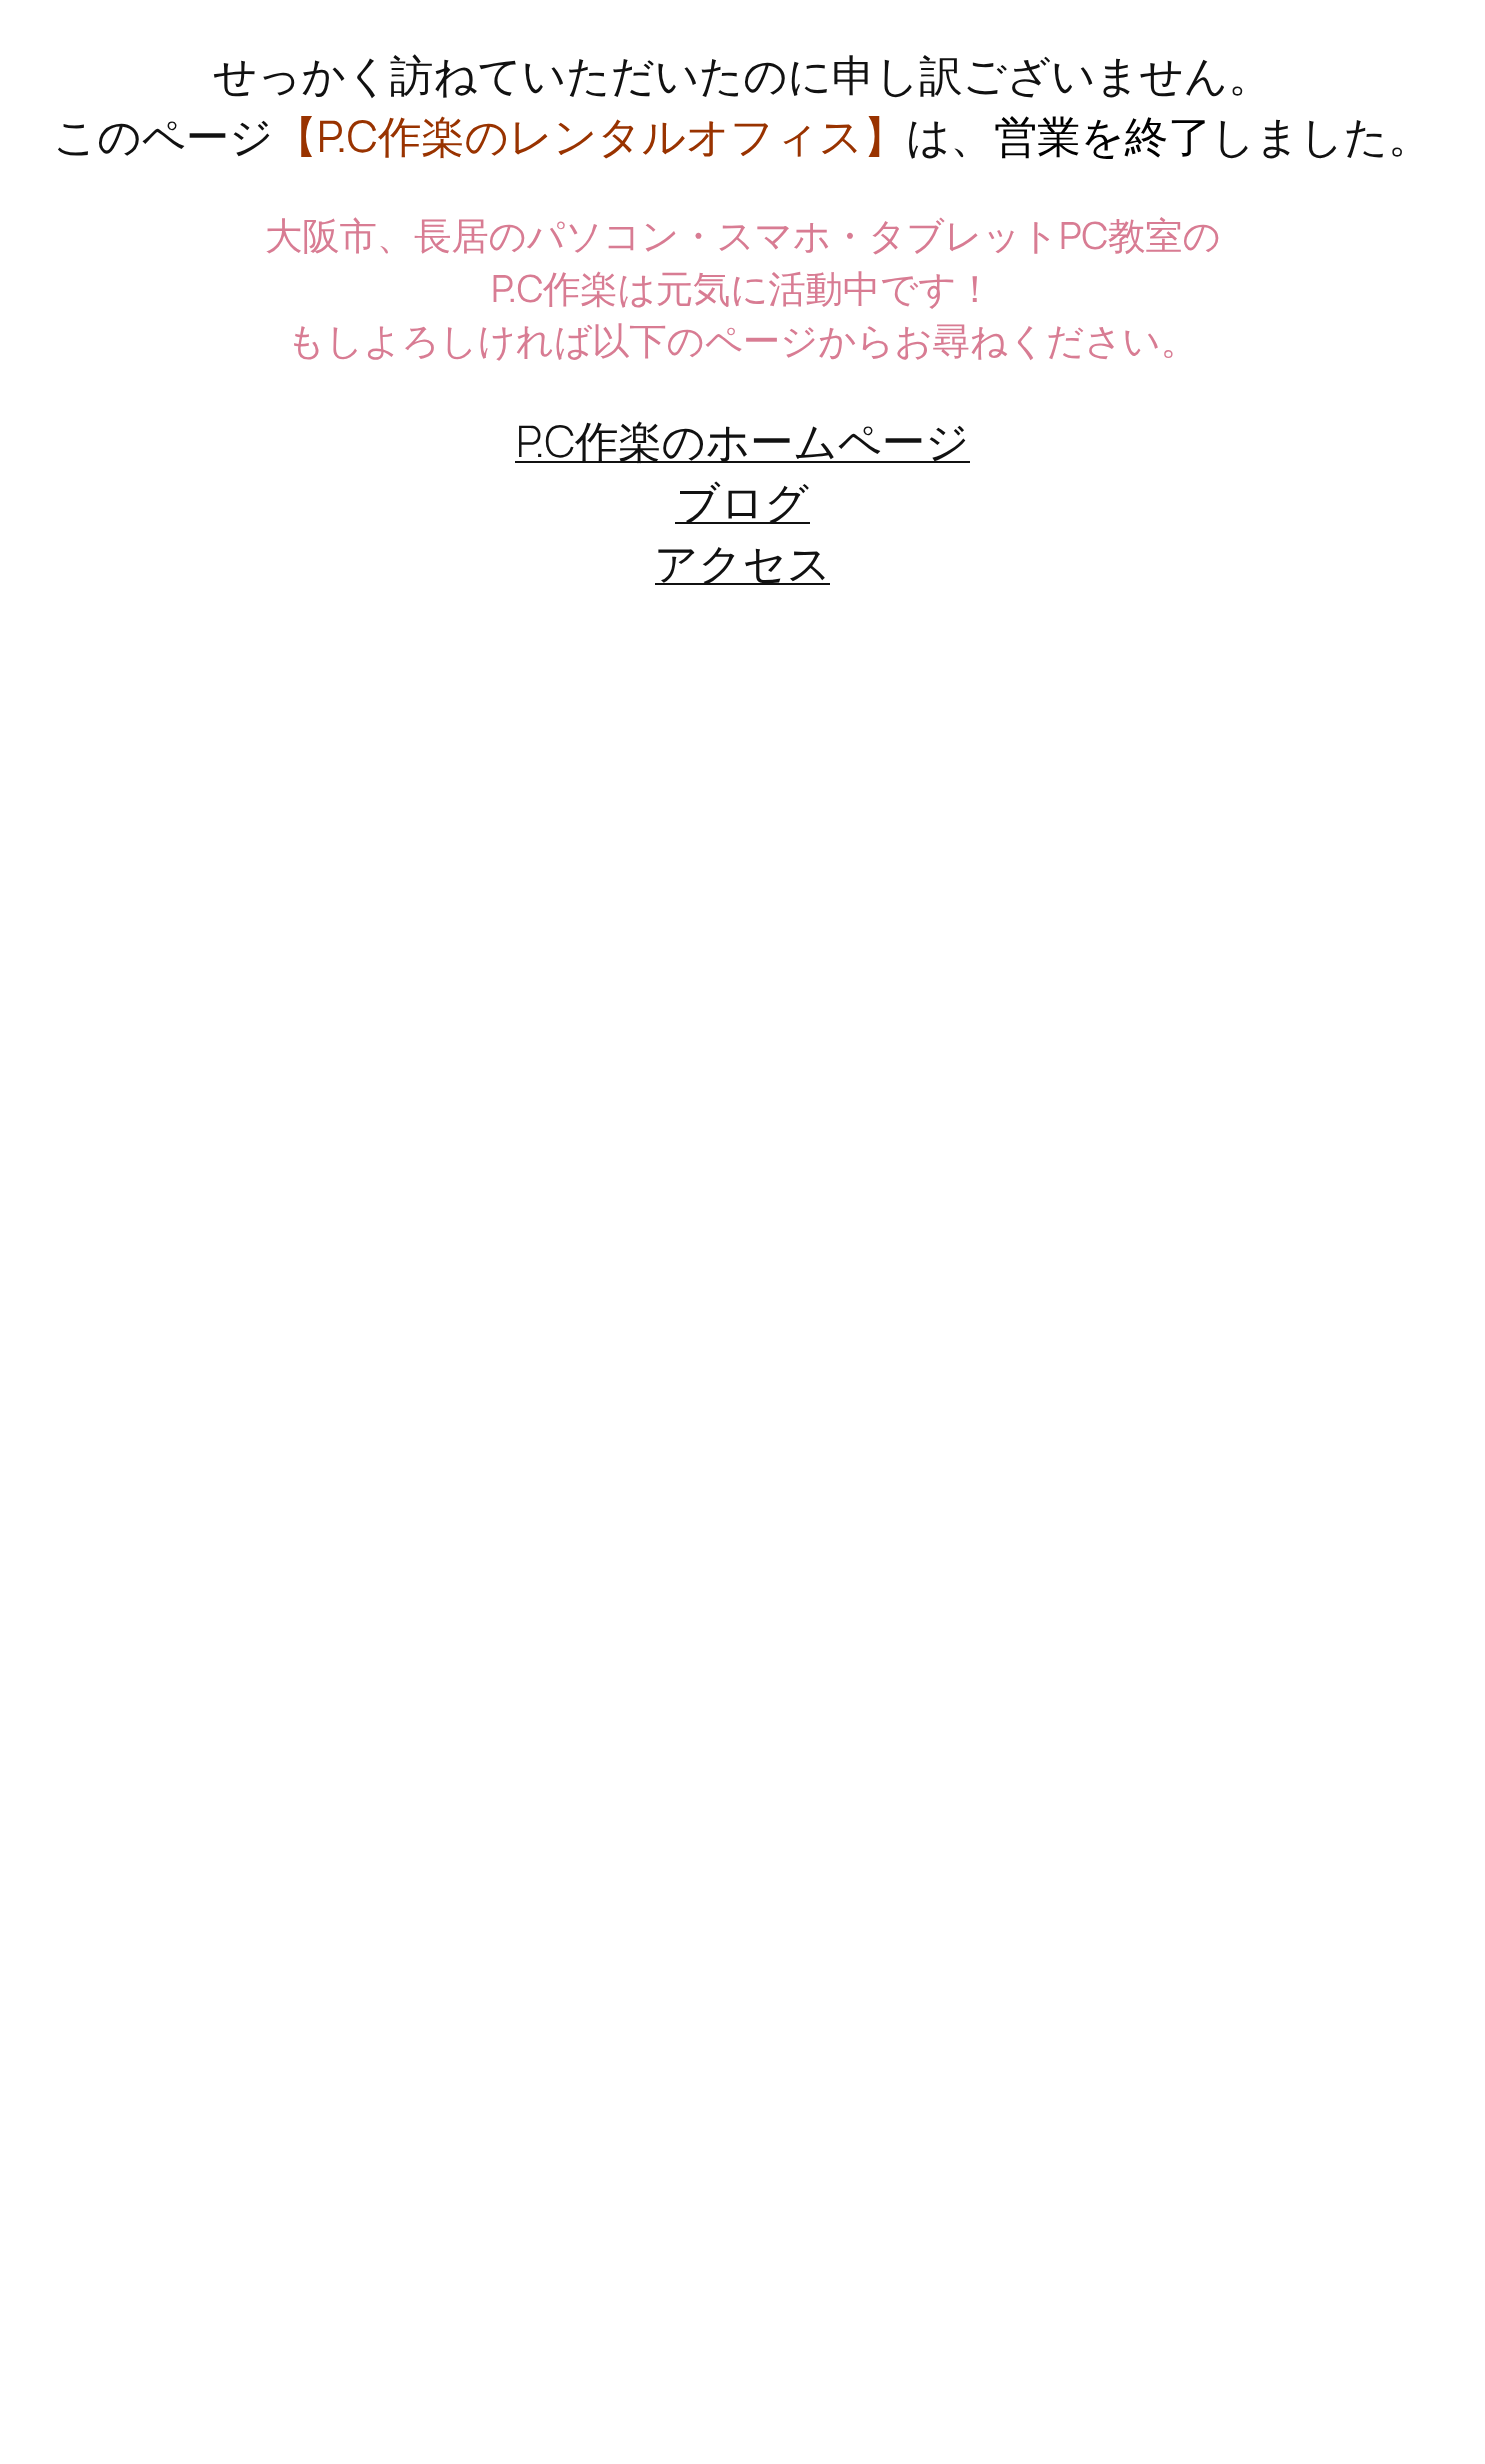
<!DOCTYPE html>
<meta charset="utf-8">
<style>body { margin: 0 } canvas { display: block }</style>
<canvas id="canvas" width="1485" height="2464"></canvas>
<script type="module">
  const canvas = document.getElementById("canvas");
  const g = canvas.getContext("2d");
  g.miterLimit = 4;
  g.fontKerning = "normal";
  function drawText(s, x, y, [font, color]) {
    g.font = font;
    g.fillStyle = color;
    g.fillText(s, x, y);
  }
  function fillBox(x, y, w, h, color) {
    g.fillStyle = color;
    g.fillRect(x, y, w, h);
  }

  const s1 = ["500 43.5px WenQuanYi Zen Hei", "#111111"];
  const s2 = ["500 43.5px WenQuanYi Zen Hei", "#993300"];
  const s3 = ["43.5px Manrope", "#993300"];
  const s4 = ["500 43.5px WenQuanYi Zen Hei", "#000000"];
  const s5 = ["500 37.5px WenQuanYi Zen Hei", "#D87C93"];
  const s6 = ["37.5px Manrope", "#D87C93"];
  const s7 = ["300 43.5px Manrope", "#111111"];

  fillBox(0, 0, 1485, 2464, "#FFFFFF");
  g.letterSpacing = "-0.25px";
  drawText("せっかく訪ねていただいたのに申し訳ございません。", 213, 91, s1);
  drawText("このページ", 53, 152, s1);
  drawText("【", 274, 152, s2);
  drawText("P.C", 317, 152, s3);
  drawText("作楽のレンタルオフィス】", 378, 152, s2);
  drawText("は、", 906, 152, s1);
  drawText("営業を終了", 994, 152, s4);
  drawText("しました。", 1211, 152, s1);
  drawText("大阪市、長居のパソコン・スマホ・タブレット", 265, 249, s5);
  drawText("PC", 1059, 249, s6);
  drawText("教室の", 1108, 249, s5);
  drawText("P.C", 491, 302, s6);
  drawText("作楽は元気に活動中です！", 543, 302, s5);
  drawText("もしよろしければ以下のページからお尋ねください。", 287, 354, s5);
  drawText("P.C", 516, 457, s7);
  fillBox(515, 461, 455, 2, "#111111");
  drawText("作楽のホームページ", 575, 457, s1);
  fillBox(675, 522, 135, 2, "#111111");
  drawText("ブログ", 676, 518, s1);
  fillBox(655, 583, 175, 2, "#111111");
  drawText("アクセス", 654, 579, s1);
</script>
